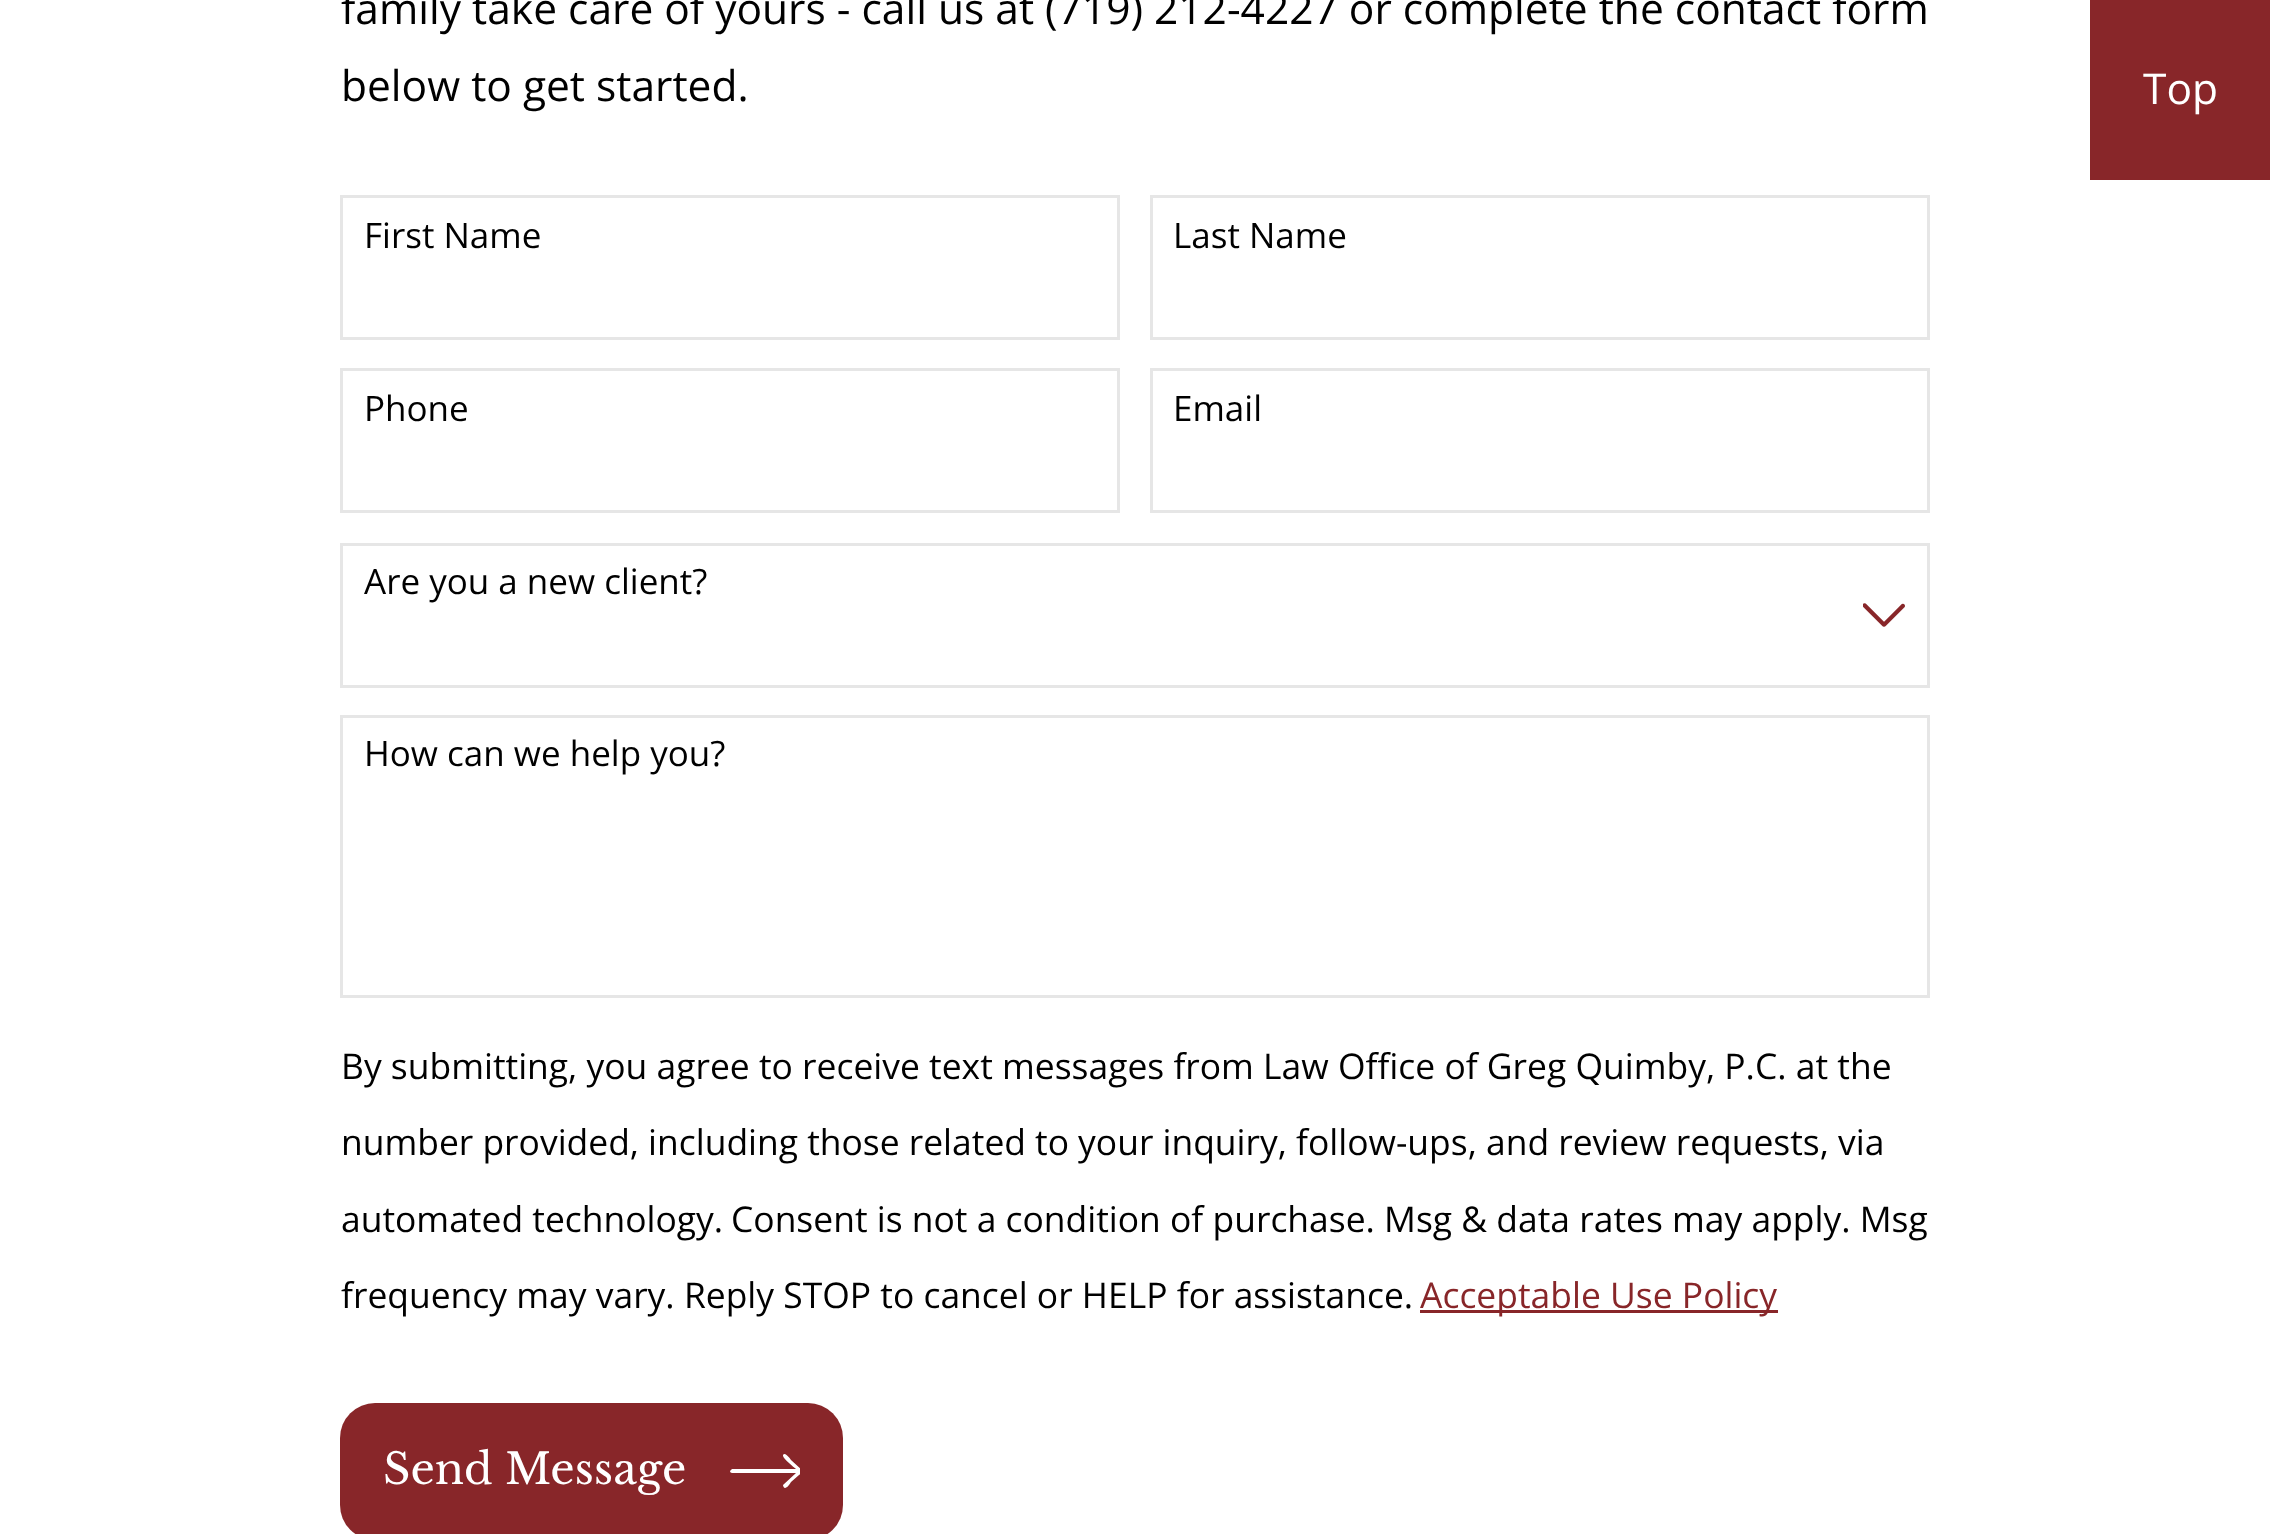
<!DOCTYPE html>
<meta charset="utf-8">
<style>body { margin: 0 } canvas { display: block }</style>
<canvas id="canvas" width="2270" height="1534"></canvas>
<script type="module">
  const canvas = document.getElementById("canvas");
  const g = canvas.getContext("2d");
  g.miterLimit = 4;
  g.fontKerning = "normal";
  function drawText(s, x, y, [font, color]) {
    g.font = font;
    g.fillStyle = color;
    g.fillText(s, x, y);
  }
  function fillBox(x, y, w, h, color) {
    g.fillStyle = color;
    g.fillRect(x, y, w, h);
  }
  function fillRounded(x, y, w, h, r, color) {
    g.fillStyle = color;
    g.beginPath();
    g.roundRect(x, y, w, h, r);
    g.fill();
  }
  async function drawPicture(src, x, y, w, h) {
    const img = new Image();
    img.src = src;
    await img.decode();
    g.drawImage(img, x, y, w, h);
  }

  const s1 = ["42.5px Open Sans", "#000000"];
  const s2 = ["35px Open Sans", "#000000"];
  const s3 = ["35.45px Open Sans", "#000000"];
  const s4 = ["35.45px Open Sans", "#882629"];
  const s5 = ["42.5px Libre Baskerville", "#FFFFFF"];
  const s6 = ["42.5px Open Sans", "#FFFFFF"];

  fillBox(0, 0, 2270, 1534, "#FFFFFF");
  drawText("family take care of yours - call us at", 341, 24, s1);
  drawText("(719) 212-4227 or complete the contact form", 1045, 24, s1);
  drawText("below to get started.", 341, 101, s1);
  g.strokeStyle = "#E6E6E6";
  g.lineWidth = 3;
  g.strokeRect(341.5, 196.5, 777, 142);
  drawText("First Name", 364, 248, s2);
  g.strokeRect(1151.5, 196.5, 777, 142);
  drawText("Last Name", 1173, 248, s2);
  g.strokeRect(341.5, 369.5, 777, 142);
  drawText("Phone", 364, 421, s2);
  g.strokeRect(1151.5, 369.5, 777, 142);
  drawText("Email", 1173, 421, s2);
  g.strokeRect(341.5, 544.5, 1587, 142);
  drawText("Are you a new client?", 364, 594, s2);
  await drawPicture("pic1.png", 1863, 603, 42, 24);
  g.strokeRect(341.5, 716.5, 1587, 280);
  drawText("How can we help you?", 364, 766, s2);
  drawText("By submitting, you agree to receive text messages from Law Office of Greg Quimby, P.C. at the", 341, 1079, s3);
  g.wordSpacing = "-0.1px";
  drawText("number provided, including those related to your inquiry, follow-ups, and review requests, via", 341, 1155, s3);
  g.wordSpacing = "0px";
  drawText("automated technology.", 341, 1232, s3);
  drawText("Consent is not a condition of purchase. Msg & data rates may apply. Msg", 731, 1232, s3);
  drawText("frequency may vary. Reply STOP to cancel or HELP for assistance.", 341, 1308, s3);
  fillBox(1420, 1310, 358, 3, "#882629");
  drawText("Acceptable Use Policy", 1420, 1308, s4);
  fillRounded(340, 1403, 503, 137, 35, "#882629");
  drawText("Send Message", 383, 1484, s5);
  g.save();
  g.beginPath();
  g.rect(730, 1435, 70, 73);
  g.clip();
  g.beginPath();
  g.moveTo(802, 1470);
  g.lineTo(791, 1460);
  g.bezierCurveTo(791, 1460, 785, 1451, 783, 1455);
  g.bezierCurveTo(782, 1458, 794, 1467, 796, 1469);
  g.lineTo(732, 1469);
  g.lineTo(730, 1471);
  g.bezierCurveTo(730, 1472, 731, 1473, 732, 1473);
  g.lineTo(796, 1473);
  g.lineTo(783, 1485);
  g.bezierCurveTo(783, 1486, 784, 1488, 785, 1488);
  g.bezierCurveTo(787, 1488, 790, 1484, 791, 1482);
  g.lineTo(799, 1475);
  g.bezierCurveTo(800, 1474, 804, 1472, 802, 1470);
  g.closePath();
  g.fill();
  g.restore();
  fillBox(2090, 0, 180, 180, "#882629");
  drawText("Top", 2143, 104, s6);
</script>
